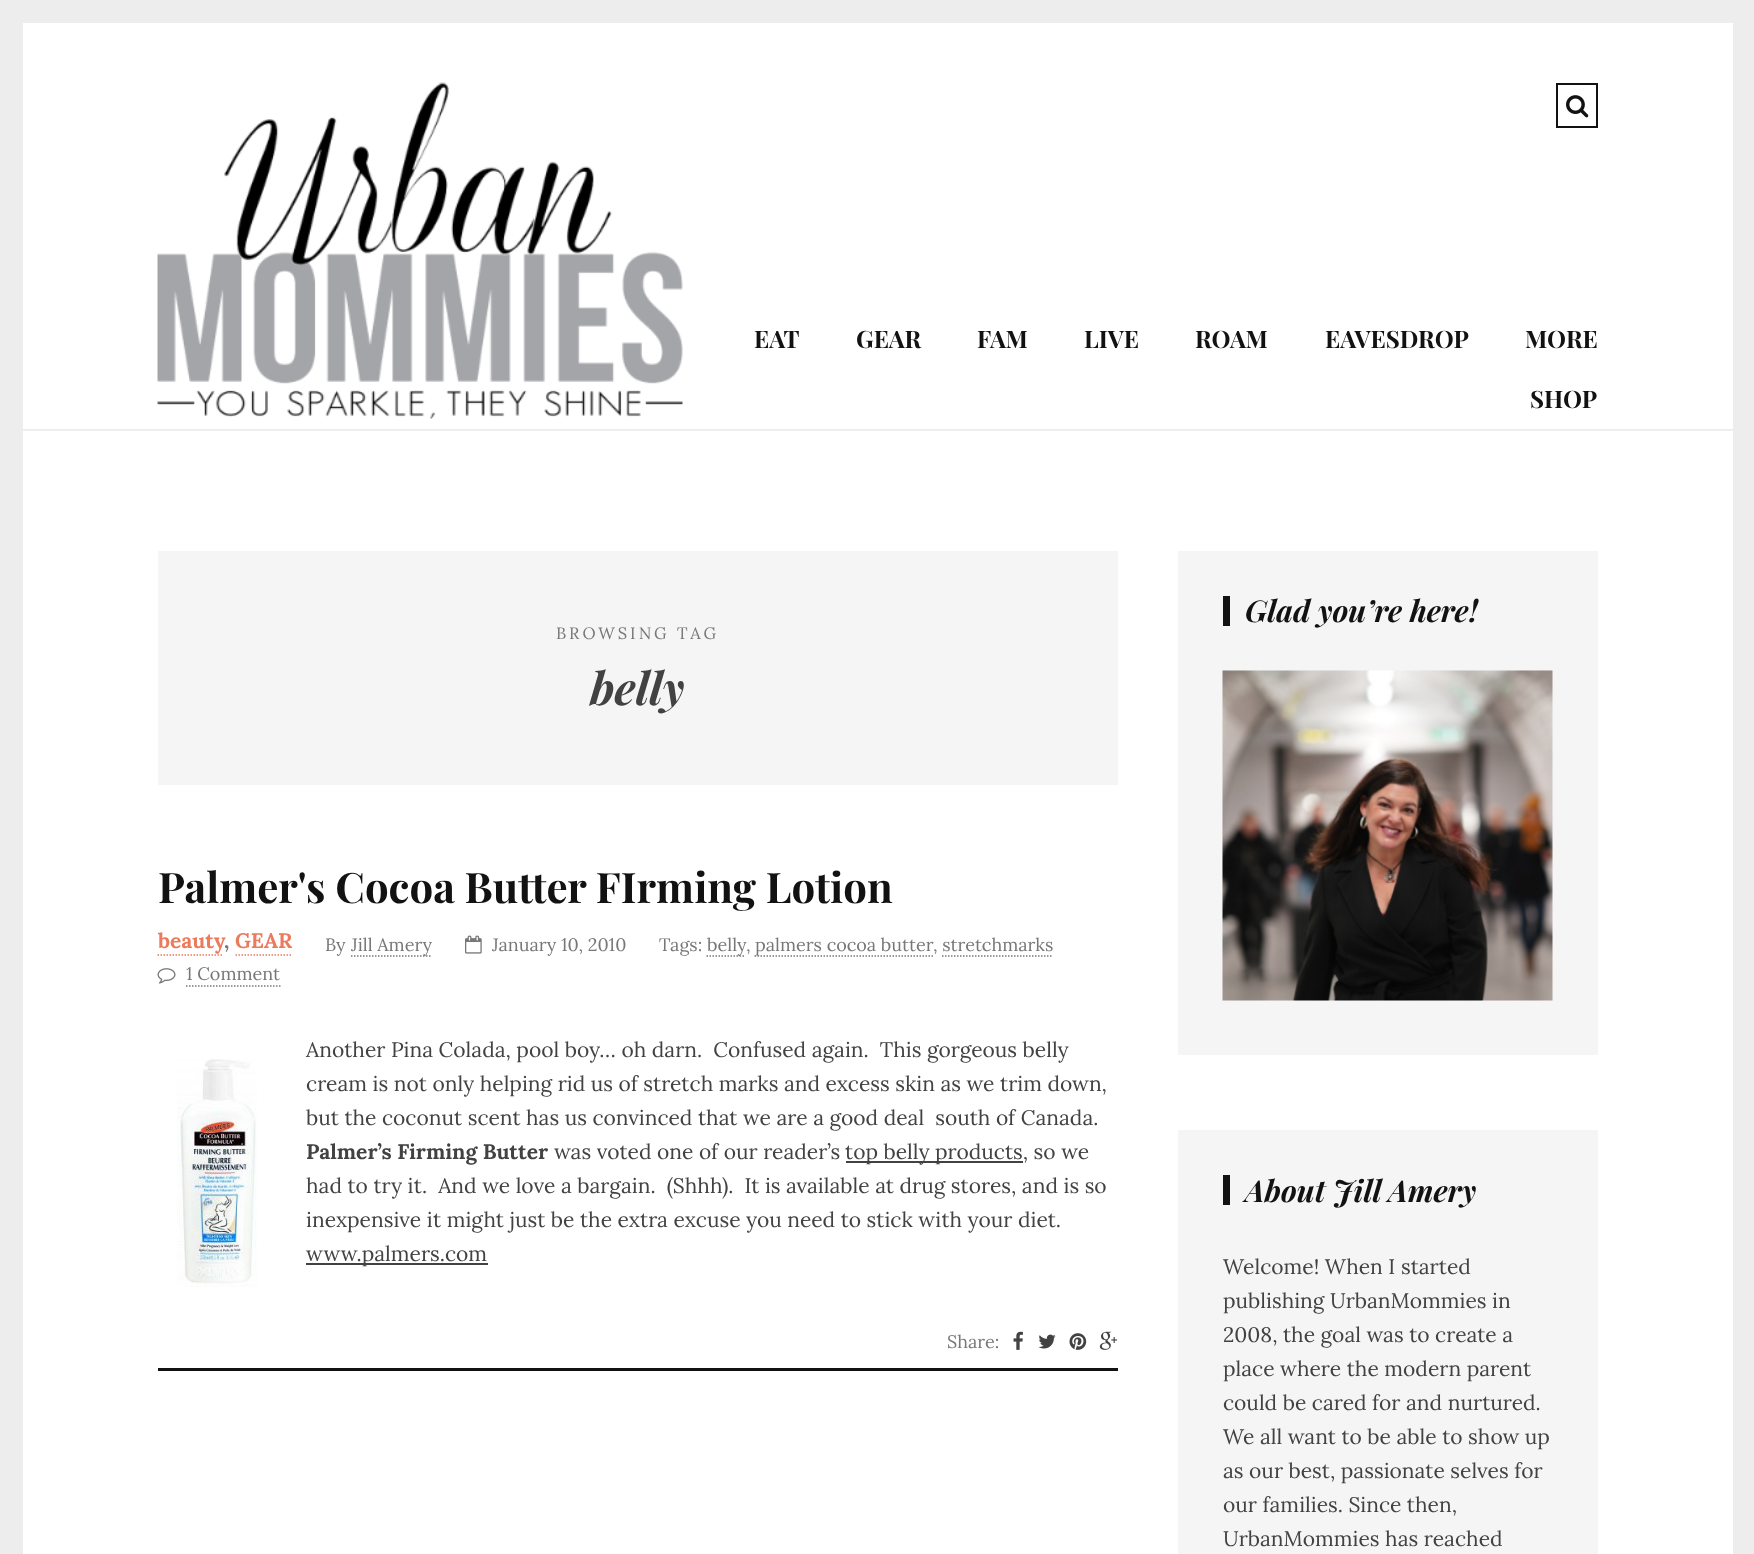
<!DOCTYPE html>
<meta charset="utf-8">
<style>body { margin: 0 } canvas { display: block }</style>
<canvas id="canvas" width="1754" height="1554"></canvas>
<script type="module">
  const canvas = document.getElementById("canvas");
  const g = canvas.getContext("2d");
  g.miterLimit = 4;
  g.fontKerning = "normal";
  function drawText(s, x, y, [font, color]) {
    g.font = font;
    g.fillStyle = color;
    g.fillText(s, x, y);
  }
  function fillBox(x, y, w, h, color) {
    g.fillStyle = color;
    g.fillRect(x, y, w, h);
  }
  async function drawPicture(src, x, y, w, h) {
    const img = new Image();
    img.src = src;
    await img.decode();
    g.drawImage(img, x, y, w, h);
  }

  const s1 = ["bold 24px Playfair Display", "#121212"];
  const s2 = ["16.5px Lora", "#777777"];
  const s3 = ["italic bold 45px Playfair Display", "#424242"];
  const s4 = ["bold 42px Playfair Display", "#121212"];
  const s5 = ["bold 21px Lora", "#EC7A5C"];
  const s6 = ["bold 21px Lora", "#777777"];
  const s7 = ["18px Lora", "#777777"];
  const s8 = ["21px Lora", "#424242"];
  const s9 = ["bold 21px Lora", "#424242"];
  const s10 = ["italic bold 30px Playfair Display", "#121212"];

  fillBox(0, 0, 1754, 1554, "#EDEDED");
  fillBox(23, 23, 1710, 1531, "#FFFFFF");
  fillBox(23, 429, 1710, 2, "#EEEEEE");
  g.strokeStyle = "#121212";
  g.lineWidth = 2;
  g.strokeRect(1557, 84, 40, 43);
  await drawPicture("pic1.png", 1566, 95, 23, 23);
  await drawPicture("pic2.png", 157, 82, 526, 337);
  drawText("EAT", 754, 348, s1);
  drawText("GEAR", 856, 348, s1);
  drawText("FAM", 977, 348, s1);
  drawText("LIVE", 1084, 348, s1);
  drawText("ROAM", 1195, 348, s1);
  drawText("EAVESDROP", 1325, 348, s1);
  drawText("MORE", 1525, 348, s1);
  drawText("SHOP", 1530, 408, s1);
  fillBox(158, 551, 960, 234, "#F5F5F5");
  g.letterSpacing = "3px";
  drawText("BROWSING TAG", 556, 639, s2);
  g.letterSpacing = "0px";
  drawText("belly", 590, 705, s3);
  fillBox(158, 1368, 960, 3, "#121212");
  drawText("Palmer's Cocoa Butter FIrming Lotion", 158, 903, s4);
  drawText("beauty", 158, 948, s5);
  g.beginPath();
  g.moveTo(157.5, 955);
  g.lineTo(223.5, 955);
  g.strokeStyle = "#EC7A5C";
  g.lineWidth = 1.5;
  g.setLineDash([1.5, 1.5]);
  g.stroke();
  drawText(",", 224, 948, s6);
  drawText("GEAR", 235, 948, s5);
  g.beginPath();
  g.moveTo(235.5, 955);
  g.lineTo(292.5, 955);
  g.stroke();
  drawText("By", 325, 951, s7);
  g.beginPath();
  g.moveTo(351, 956);
  g.lineTo(432, 956);
  g.strokeStyle = "#777777";
  g.stroke();
  drawText("Jill Amery", 351, 951, s7);
  await drawPicture("pic3.png", 465, 935, 17, 19);
  drawText("January 10, 2010", 492, 951, s7);
  drawText("Tags:", 659, 951, s7);
  g.beginPath();
  g.moveTo(706.5, 956);
  g.lineTo(745.5, 956);
  g.stroke();
  drawText("belly", 707, 951, s7);
  drawText(",", 746, 951, s7);
  g.beginPath();
  g.moveTo(754.5, 956);
  g.lineTo(933, 956);
  g.stroke();
  drawText("palmers cocoa butter", 755, 951, s7);
  drawText(", stretchmarks", 933, 951, s7);
  g.beginPath();
  g.moveTo(942, 956);
  g.lineTo(1053, 956);
  g.stroke();
  await drawPicture("pic4.png", 157, 968, 19, 16);
  drawText("1 Comment", 186, 980, s7);
  g.beginPath();
  g.moveTo(186, 986);
  g.lineTo(280.5, 986);
  g.stroke();
  drawText("Another Pina Colada, pool boy… oh darn.  Confused again.  This gorgeous belly", 306, 1057, s8);
  await drawPicture("pic5.png", 177, 1059, 80, 228);
  drawText("cream is not only helping rid us of stretch marks and excess skin as we trim down,", 306, 1091, s8);
  drawText("but the coconut scent has us convinced that we are a good deal  south of Canada.", 306, 1125, s8);
  drawText("Palmer’s Firming Butter", 306, 1159, s9);
  drawText("was voted one of our reader’s", 554, 1159, s8);
  fillBox(846, 1161, 177, 2, "#424242");
  drawText("top belly products, so we", 845, 1159, s8);
  drawText("had to try it.  And we love a bargain.  (Shhh).  It is available at drug stores, and is so", 306, 1193, s8);
  drawText("inexpensive it might just be the extra excuse you need to stick with your diet.", 306, 1227, s8);
  fillBox(306, 1263, 182, 2, "#424242");
  drawText("www.palmers.com", 306, 1261, s8);
  drawText("Share:", 947, 1348, s7);
  await drawPicture("pic6.png", 1013, 1331, 10, 19);
  await drawPicture("pic7.png", 1038, 1334, 18, 15);
  await drawPicture("pic8.png", 1069, 1333, 18, 17);
  await drawPicture("pic9.png", 1099, 1331, 19, 19);
  fillBox(1178, 551, 420, 504, "#F5F5F5");
  fillBox(1223, 596, 7, 30, "#121212");
  drawText("Glad you’re here!", 1245, 622, s10);
  await drawPicture("pic10.png", 1222, 670, 331, 331);
  fillBox(1178, 1130, 420, 424, "#F5F5F5");
  fillBox(1223, 1175, 7, 30, "#121212");
  drawText("About Jill Amery", 1245, 1202, s10);
  drawText("Welcome! When I started", 1223, 1274, s8);
  drawText("publishing UrbanMommies in", 1223, 1308, s8);
  drawText("2008, the goal was to create a", 1223, 1342, s8);
  drawText("place where the modern parent", 1223, 1376, s8);
  drawText("could be cared for and nurtured.", 1223, 1410, s8);
  drawText("We all want to be able to show up", 1223, 1444, s8);
  drawText("as our best, passionate selves for", 1223, 1478, s8);
  drawText("our families. Since then,", 1223, 1512, s8);
  drawText("UrbanMommies has reached", 1223, 1546, s8);
</script>
